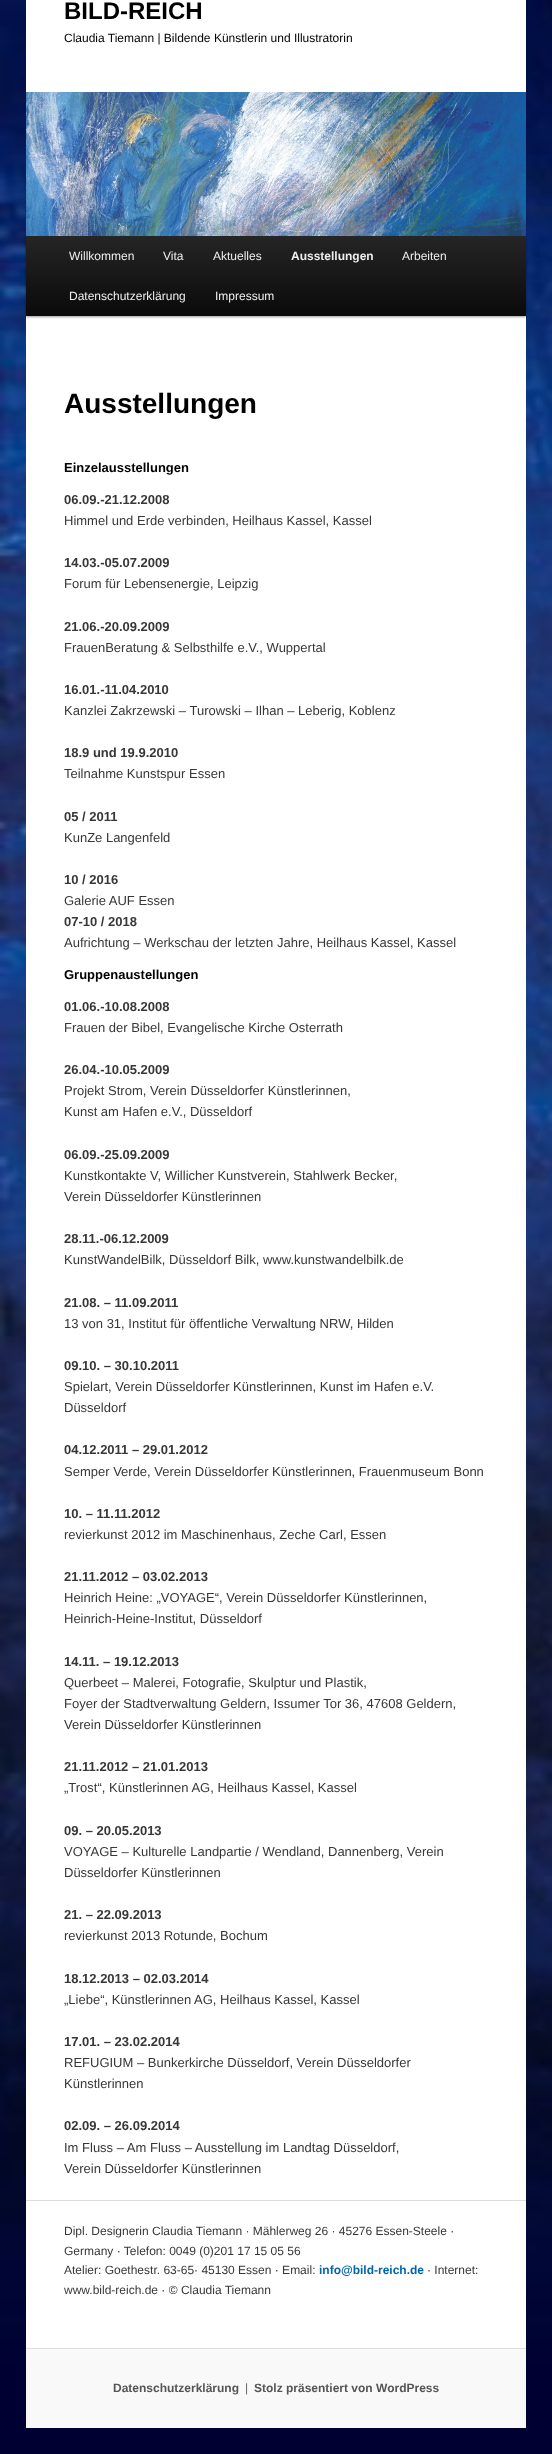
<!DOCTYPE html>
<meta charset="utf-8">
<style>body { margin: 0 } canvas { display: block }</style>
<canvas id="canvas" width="552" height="2454"></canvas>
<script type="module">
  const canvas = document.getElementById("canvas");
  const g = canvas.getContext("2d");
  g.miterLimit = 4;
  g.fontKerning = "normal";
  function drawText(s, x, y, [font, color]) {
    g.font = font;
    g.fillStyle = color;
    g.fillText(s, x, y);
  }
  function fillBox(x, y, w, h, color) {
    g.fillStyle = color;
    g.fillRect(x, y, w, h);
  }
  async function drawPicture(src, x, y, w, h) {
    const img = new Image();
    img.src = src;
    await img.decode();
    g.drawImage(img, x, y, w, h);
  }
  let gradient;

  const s1 = ["bold 24px Liberation Sans", "#000000"];
  const s2 = ["12px Liberation Sans", "#000000"];
  const s3 = ["12px Liberation Sans", "#EEEEEE"];
  const s4 = ["bold 12px Liberation Sans", "#EEEEEE"];
  const s5 = ["bold 28px Liberation Sans", "#000000"];
  const s6 = ["bold 13px Liberation Sans", "#000000"];
  const s7 = ["bold 13px Liberation Sans", "#373737"];
  const s8 = ["13px Liberation Sans", "#373737"];
  const s9 = ["12px Liberation Sans", "#373737"];
  const s10 = ["bold 12px Liberation Sans", "#0066AA"];
  const s11 = ["bold 12px Liberation Sans", "#555555"];
  const s12 = ["12px Liberation Sans", "#666666"];

  fillBox(0, 0, 552, 2454, "#FFFFFF");
  await drawPicture("pic1.png", 0, 0, 552, 2454);
  fillBox(26, 0, 500, 2348, "#FFFFFF");
  drawText("BILD-REICH", 64, 19, s1);
  drawText("Claudia Tiemann | Bildende Künstlerin und Illustratorin", 64, 42, s2);
  g.fillStyle = "rgba(0, 0, 0, 0.4)";
  g.filter = "blur(1px)";
  g.beginPath();
  g.rect(26, 237, 500, 80);
  g.fill();
  g.filter = "none";
  await drawPicture("pic2.png", 26, 92, 500, 144);
  gradient = g.createLinearGradient(276, 236, 276, 316);
  gradient.addColorStop(0, "#252525");
  gradient.addColorStop(1, "#0A0A0A");
  g.fillStyle = gradient;
  g.fillRect(26, 236, 500, 80);
  drawText("Willkommen", 69, 260, s3);
  drawText("Vita", 163, 260, s3);
  drawText("Aktuelles", 213, 260, s3);
  drawText("Ausstellungen", 291, 260, s4);
  drawText("Arbeiten", 402, 260, s3);
  drawText("Datenschutzerklärung", 69, 300, s3);
  drawText("Impressum", 215, 300, s3);
  drawText("Ausstellungen", 64, 413, s5);
  drawText("Einzelausstellungen", 64, 472, s6);
  drawText("06.09.-21.12.2008", 64, 504, s7);
  drawText("Himmel und Erde verbinden, Heilhaus Kassel, Kassel", 64, 525, s8);
  drawText("14.03.-05.07.2009", 64, 567, s7);
  drawText("Forum für Lebensenergie, Leipzig", 64, 588, s8);
  drawText("21.06.-20.09.2009", 64, 631, s7);
  drawText("FrauenBeratung & Selbsthilfe e.V., Wuppertal", 64, 652, s8);
  drawText("16.01.-11.04.2010", 64, 694, s7);
  drawText("Kanzlei Zakrzewski – Turowski – Ilhan – Leberig, Koblenz", 64, 715, s8);
  drawText("18.9 und 19.9.2010", 64, 757, s7);
  drawText("Teilnahme Kunstspur Essen", 64, 778, s8);
  drawText("05 / 2011", 64, 821, s7);
  drawText("KunZe Langenfeld", 64, 842, s8);
  drawText("10 / 2016", 64, 884, s7);
  drawText("Galerie AUF Essen", 64, 905, s8);
  drawText("07-10 / 2018", 64, 926, s7);
  drawText("Aufrichtung – Werkschau der letzten Jahre, Heilhaus Kassel, Kassel", 64, 947, s8);
  drawText("Gruppenaustellungen", 64, 979, s6);
  drawText("01.06.-10.08.2008", 64, 1011, s7);
  drawText("Frauen der Bibel, Evangelische Kirche Osterrath", 64, 1032, s8);
  drawText("26.04.-10.05.2009", 64, 1074, s7);
  drawText("Projekt Strom, Verein Düsseldorfer Künstlerinnen,", 64, 1095, s8);
  drawText("Kunst am Hafen e.V., Düsseldorf", 64, 1116, s8);
  drawText("06.09.-25.09.2009", 64, 1159, s7);
  drawText("Kunstkontakte V, Willicher Kunstverein, Stahlwerk Becker,", 64, 1180, s8);
  drawText("Verein Düsseldorfer Künstlerinnen", 64, 1201, s8);
  drawText("28.11.-06.12.2009", 64, 1243, s7);
  drawText("KunstWandelBilk, Düsseldorf Bilk, www.kunstwandelbilk.de", 64, 1264, s8);
  drawText("21.08. – 11.09.2011", 64, 1307, s7);
  drawText("13 von 31, Institut für öffentliche Verwaltung NRW, Hilden", 64, 1328, s8);
  drawText("09.10. – 30.10.2011", 64, 1370, s7);
  drawText("Spielart, Verein Düsseldorfer Künstlerinnen, Kunst im Hafen e.V.", 64, 1391, s8);
  drawText("Düsseldorf", 64, 1412, s8);
  drawText("04.12.2011 – 29.01.2012", 64, 1454, s7);
  drawText("Semper Verde, Verein Düsseldorfer Künstlerinnen, Frauenmuseum Bonn", 64, 1476, s8);
  drawText("10. – 11.11.2012", 64, 1518, s7);
  drawText("revierkunst 2012 im Maschinenhaus, Zeche Carl, Essen", 64, 1539, s8);
  drawText("21.11.2012 – 03.02.2013", 64, 1581, s7);
  drawText("Heinrich Heine: „VOYAGE“, Verein Düsseldorfer Künstlerinnen,", 64, 1602, s8);
  drawText("Heinrich-Heine-Institut, Düsseldorf", 64, 1623, s8);
  drawText("14.11. – 19.12.2013", 64, 1666, s7);
  drawText("Querbeet – Malerei, Fotografie, Skulptur und Plastik,", 64, 1687, s8);
  drawText("Foyer der Stadtverwaltung Geldern, Issumer Tor 36, 47608 Geldern,", 64, 1708, s8);
  drawText("Verein Düsseldorfer Künstlerinnen", 64, 1729, s8);
  drawText("21.11.2012 – 21.01.2013", 64, 1771, s7);
  drawText("„Trost“, Künstlerinnen AG, Heilhaus Kassel, Kassel", 64, 1792, s8);
  drawText("09. – 20.05.2013", 64, 1835, s7);
  drawText("VOYAGE – Kulturelle Landpartie / Wendland, Dannenberg, Verein", 64, 1856, s8);
  drawText("Düsseldorfer Künstlerinnen", 64, 1877, s8);
  drawText("21. – 22.09.2013", 64, 1919, s7);
  drawText("revierkunst 2013 Rotunde, Bochum", 64, 1940, s8);
  drawText("18.12.2013 – 02.03.2014", 64, 1983, s7);
  drawText("„Liebe“, Künstlerinnen AG, Heilhaus Kassel, Kassel", 64, 2004, s8);
  drawText("17.01. – 23.02.2014", 64, 2046, s7);
  drawText("REFUGIUM – Bunkerkirche Düsseldorf, Verein Düsseldorfer", 64, 2067, s8);
  drawText("Künstlerinnen", 64, 2088, s8);
  drawText("02.09. – 26.09.2014", 64, 2130, s7);
  drawText("Im Fluss – Am Fluss – Ausstellung im Landtag Düsseldorf,", 64, 2152, s8);
  drawText("Verein Düsseldorfer Künstlerinnen", 64, 2173, s8);
  fillBox(26, 2200, 500, 1, "#DDDDDD");
  drawText("Dipl. Designerin Claudia Tiemann · Mählerweg 26 · 45276 Essen-Steele ·", 64, 2235, s9);
  drawText("Germany · Telefon: 0049 (0)201 17 15 05 56", 64, 2255, s9);
  drawText("Atelier: Goethestr. 63-65· 45130 Essen · Email:", 64, 2274, s9);
  drawText("info@bild-reich.de", 319, 2274, s10);
  drawText("· Internet:", 427, 2274, s9);
  drawText("www.bild-reich.de · © Claudia Tiemann", 64, 2294, s9);
  fillBox(26, 2349, 500, 79, "#F9F9F9");
  fillBox(26, 2348, 500, 1, "#DDDDDD");
  drawText("Datenschutzerklärung", 113, 2392, s11);
  drawText("|", 245, 2392, s12);
  drawText("Stolz präsentiert von WordPress", 254, 2392, s11);
</script>
